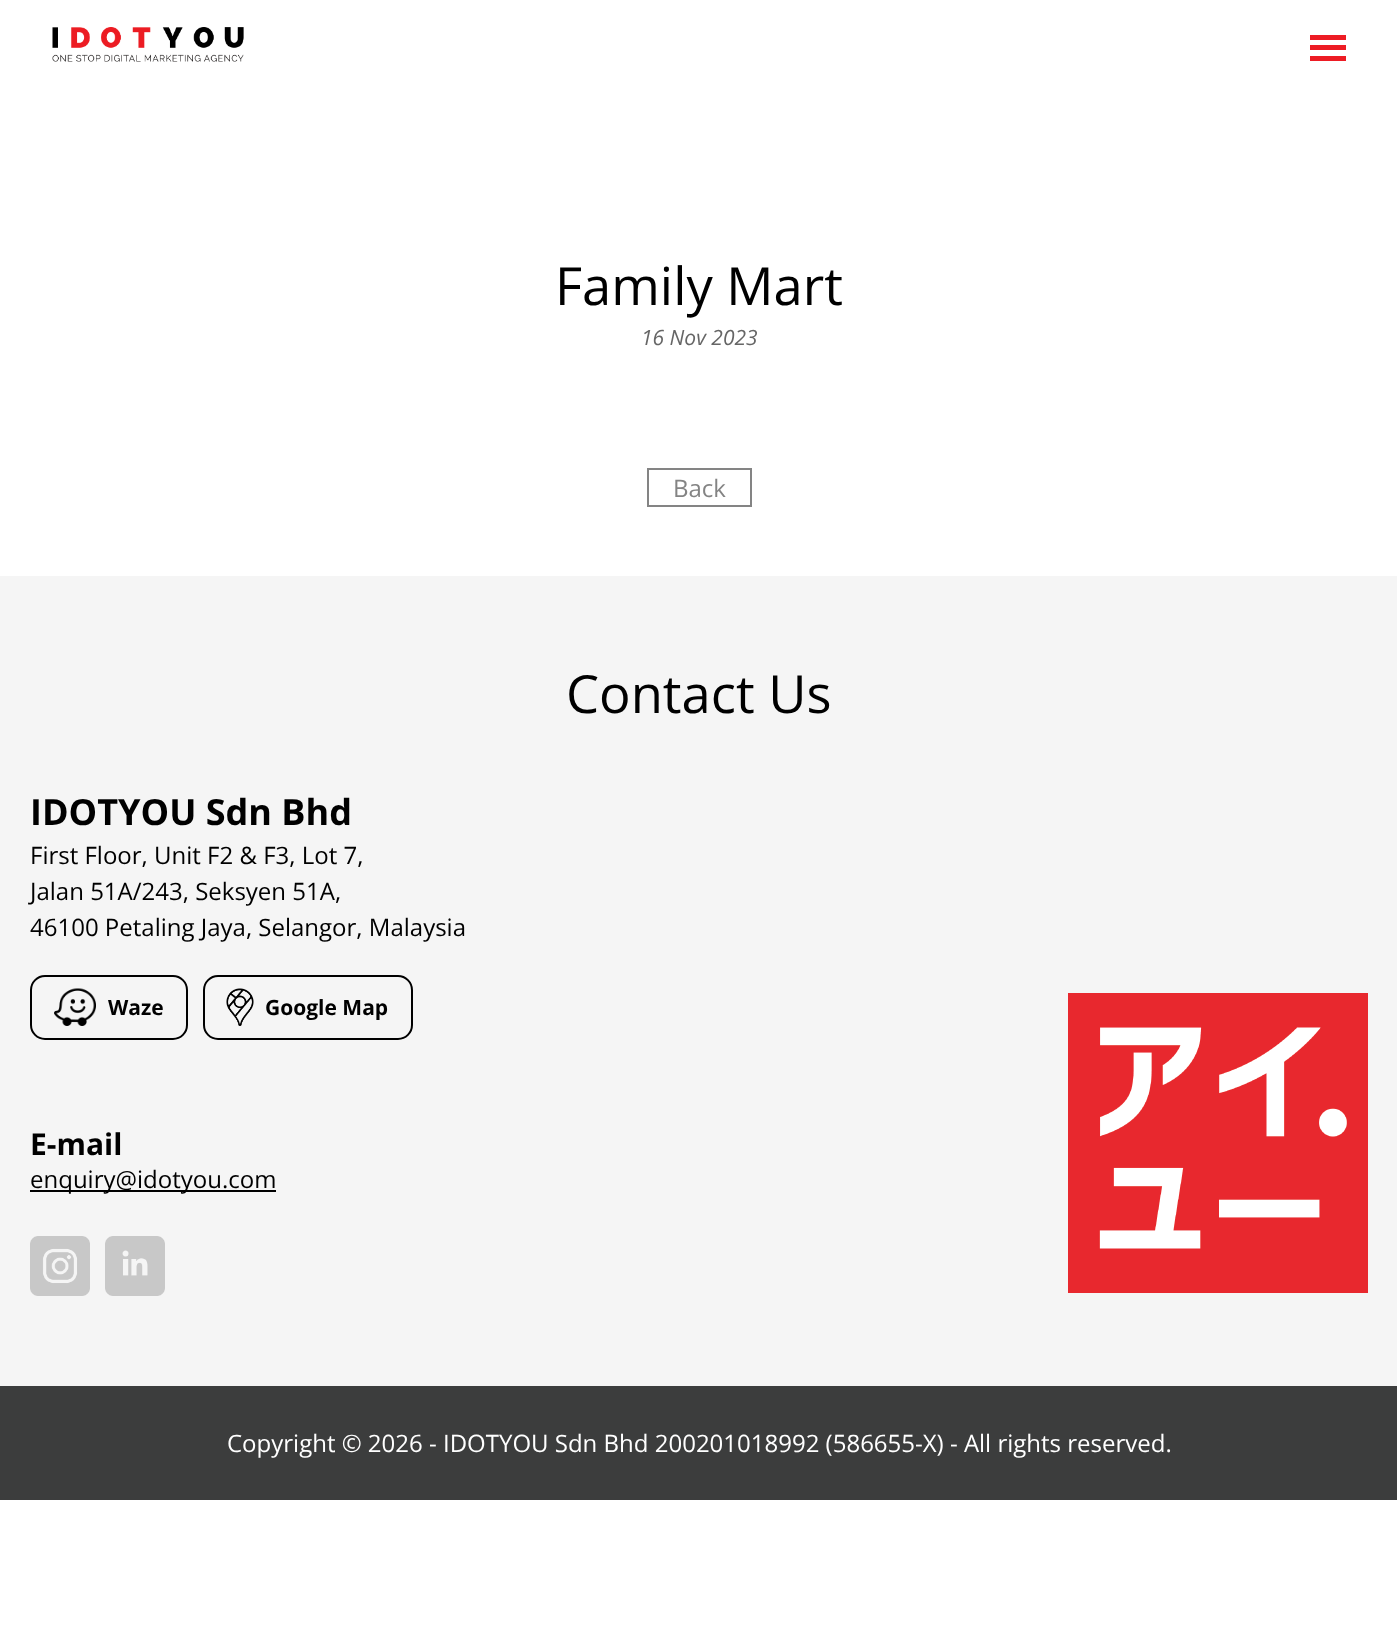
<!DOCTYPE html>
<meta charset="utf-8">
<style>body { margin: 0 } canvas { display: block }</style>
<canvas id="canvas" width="1397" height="1637"></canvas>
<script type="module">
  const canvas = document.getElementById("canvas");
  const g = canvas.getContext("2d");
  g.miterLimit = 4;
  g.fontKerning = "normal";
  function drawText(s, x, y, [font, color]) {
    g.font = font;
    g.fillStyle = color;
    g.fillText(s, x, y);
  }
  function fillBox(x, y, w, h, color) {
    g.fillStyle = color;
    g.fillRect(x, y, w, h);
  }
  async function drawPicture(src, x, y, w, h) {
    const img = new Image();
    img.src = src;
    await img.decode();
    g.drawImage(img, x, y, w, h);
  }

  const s1 = ["52.5px Open Sans", "#000000"];
  const s2 = ["italic 21px Open Sans", "#666666"];
  const s3 = ["24px Open Sans", "#848484"];
  const s4 = ["bold 36px Open Sans", "#000000"];
  const s5 = ["24px Open Sans", "#000000"];
  const s6 = ["bold 21px Open Sans", "#000000"];
  const s7 = ["bold 30px Open Sans", "#000000"];
  const s8 = ["24px Open Sans", "#FFFFFF"];

  fillBox(0, 0, 1397, 1637, "#FFFFFF");
  await drawPicture("pic1.png", 52, 27, 192, 35);
  fillBox(1310, 45, 36, 5, "#ED1C24");
  fillBox(1310, 35, 36, 5, "#ED1C24");
  fillBox(1310, 56, 36, 5, "#ED1C24");
  drawText("Family Mart", 555, 305, s1);
  drawText("16 Nov 2023", 641, 345, s2);
  g.strokeStyle = "#848484";
  g.lineWidth = 2;
  g.strokeRect(648, 469, 103, 37);
  drawText("Back", 673, 497, s3);
  fillBox(0, 576, 1397, 810, "#F5F5F5");
  drawText("Contact Us", 566, 713, s1);
  drawText("IDOTYOU Sdn Bhd", 30, 825, s4);
  drawText("First Floor, Unit F2 & F3, Lot 7,", 30, 864, s5);
  drawText("Jalan 51A/243, Seksyen 51A,", 30, 900, s5);
  drawText("46100 Petaling Jaya, Selangor, Malaysia", 30, 936, s5);
  g.beginPath();
  g.roundRect(31, 976, 156, 63, 14);
  g.strokeStyle = "#000000";
  g.stroke();
  await drawPicture("pic2.png", 54, 988, 42, 38);
  drawText("Waze", 108, 1015, s6);
  g.beginPath();
  g.roundRect(204, 976, 208, 63, 14);
  g.stroke();
  await drawPicture("pic3.png", 226, 988, 28, 38);
  drawText("Google Map", 265, 1015, s6);
  drawText("E-mail", 30, 1155, s7);
  fillBox(30, 1190, 246, 2, "#000000");
  drawText("enquiry@idotyou.com", 30, 1188, s5);
  await drawPicture("pic4.png", 30, 1236, 60, 60);
  await drawPicture("pic5.png", 105, 1236, 60, 60);
  await drawPicture("pic6.png", 1068, 993, 300, 300);
  fillBox(0, 1386, 1397, 114, "#3C3D3D");
  drawText("Copyright © 2026 - IDOTYOU Sdn Bhd 200201018992 (586655-X) - All rights reserved.", 227, 1452, s8);
</script>
